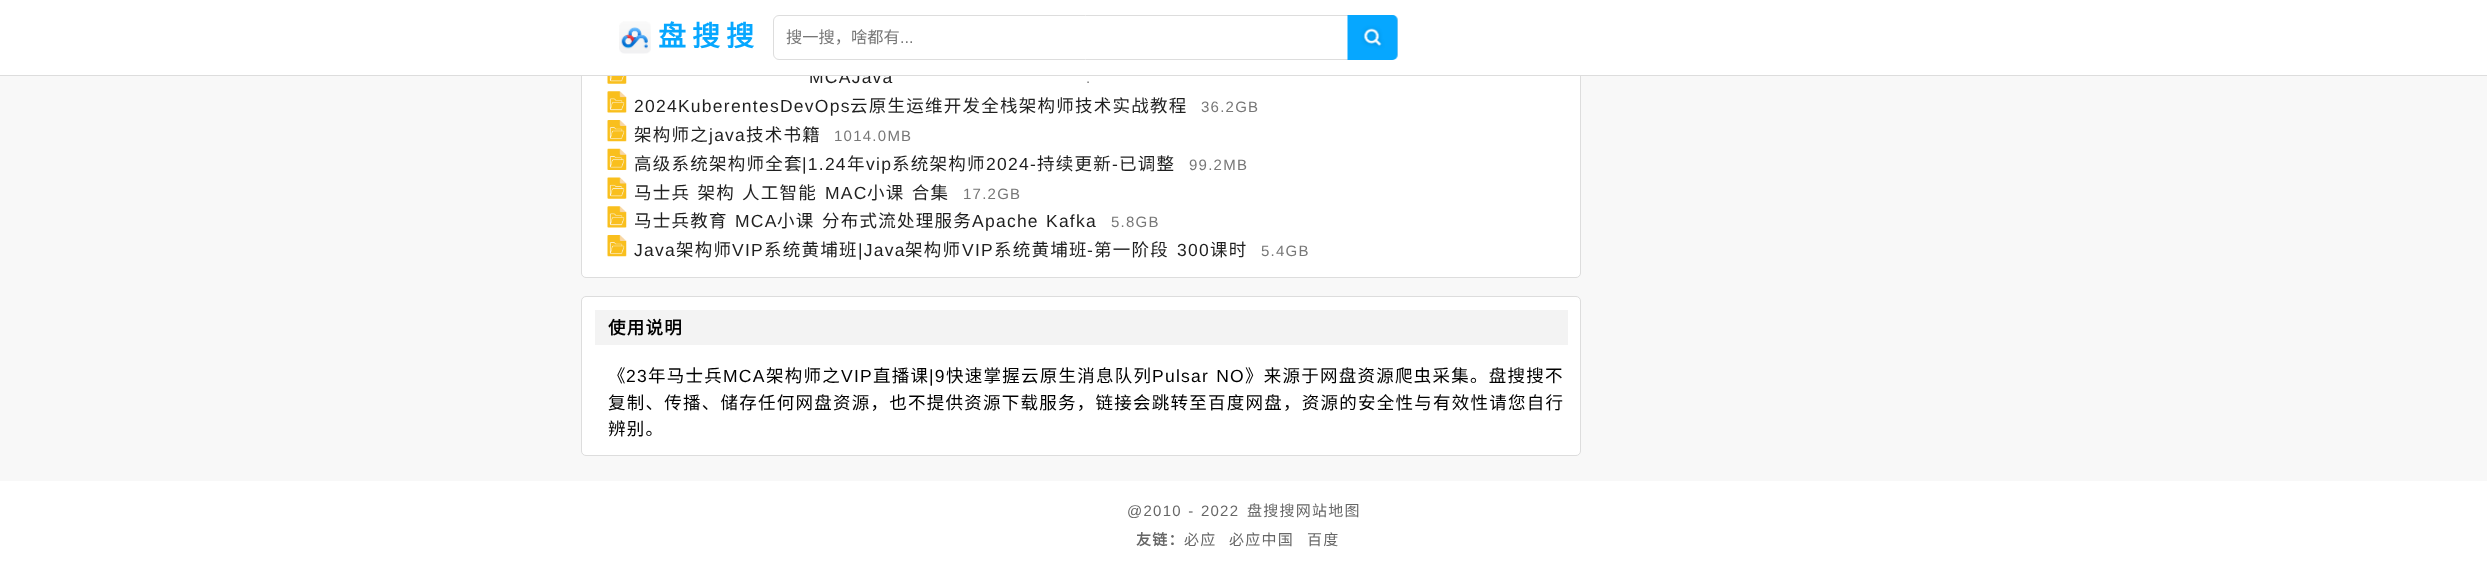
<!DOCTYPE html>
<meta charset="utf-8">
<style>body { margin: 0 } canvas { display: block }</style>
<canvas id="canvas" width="2487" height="569"></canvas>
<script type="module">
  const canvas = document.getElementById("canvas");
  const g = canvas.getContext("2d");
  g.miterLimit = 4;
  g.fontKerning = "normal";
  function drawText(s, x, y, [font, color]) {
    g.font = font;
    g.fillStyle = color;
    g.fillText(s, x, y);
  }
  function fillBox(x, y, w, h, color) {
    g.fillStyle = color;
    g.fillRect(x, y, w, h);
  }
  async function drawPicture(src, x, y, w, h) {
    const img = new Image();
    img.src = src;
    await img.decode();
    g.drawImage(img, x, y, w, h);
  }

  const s1 = ["17.5px Liberation Sans", "#1F1F1F"];
  const s2 = ["bold 28px Noto Sans CJK SC", "#06A7FF"];
  const s3 = ["16.25px Noto Sans CJK SC", "#777777"];
  const s4 = ["16.25px Liberation Sans", "#777777"];
  const s5 = ["15px Liberation Sans", "#777777"];
  const s6 = ["17.5px Noto Sans CJK SC", "#1F1F1F"];
  const s7 = ["bold 17.5px Noto Sans CJK SC", "#000000"];
  const s8 = ["17.5px Noto Sans CJK SC", "#000000"];
  const s9 = ["17.5px Liberation Sans", "#000000"];
  const s10 = ["15px Liberation Sans", "#666666"];
  const s11 = ["15px Noto Sans CJK SC", "#666666"];
  const s12 = ["bold 15px Noto Sans CJK SC", "#666666"];

  fillBox(0, 0, 2487, 569, "#FFFFFF");
  fillBox(0, 76, 2487, 405, "#F8F8F8");
  g.fillStyle = "#FFFFFF";
  g.beginPath();
  g.roundRect(581.5, -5.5, 999, 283, 4.5);
  g.fill();
  g.strokeStyle = "#DDDDDD";
  g.stroke();
  g.letterSpacing = "1.25px";
  drawText("MCAJava", 809, 83, s1);
  fillBox(581, 0, 1000, 75, "#FFFFFF");
  fillBox(0, 75, 2487, 1, "#DDDDDD");
  await drawPicture("pic1.png", 619, 21, 32, 33);
  g.letterSpacing = "6px";
  drawText("盘搜搜", 658, 46, s2);
  g.beginPath();
  g.roundRect(773.5, 15.5, 624, 44, 5.5);
  g.stroke();
  g.letterSpacing = "0px";
  drawText("搜一搜，啥都有", 786, 43, s3);
  drawText("...", 900, 43, s4);
  await drawPicture("pic2.png", 1347, 15, 51, 45);
  await drawPicture("pic3.png", 607, 76, 20, 8);
  g.letterSpacing = "1.25px";
  drawText(".", 1086, 83, s5);
  await drawPicture("pic4.png", 607, 91, 20, 22);
  drawText("2024KuberentesDevOps", 634, 112, s1);
  drawText("云原生运维开发全栈架构师技术实战教程", 850, 112, s6);
  drawText("36.2GB", 1201, 112, s5);
  await drawPicture("pic5.png", 607, 120, 20, 22);
  drawText("架构师之", 634, 141, s6);
  drawText("java", 709, 141, s1);
  drawText("技术书籍", 746, 141, s6);
  drawText("1014.0MB", 834, 141, s5);
  await drawPicture("pic6.png", 607, 148, 20, 22);
  drawText("高级系统架构师全套", 634, 170, s6);
  drawText("|1.24", 802, 170, s1);
  drawText("年", 847, 170, s6);
  drawText("vip", 866, 170, s1);
  drawText("系统架构师", 892, 170, s6);
  drawText("2024-", 986, 170, s1);
  drawText("持续更新", 1037, 170, s6);
  drawText("-", 1112, 170, s1);
  drawText("已调整", 1119, 170, s6);
  drawText("99.2MB", 1189, 170, s5);
  await drawPicture("pic7.png", 607, 177, 20, 22);
  g.wordSpacing = "2px";
  drawText("马士兵 架构 人工智能", 634, 199, s6);
  g.wordSpacing = "0px";
  drawText("MAC", 825, 199, s1);
  g.wordSpacing = "2px";
  drawText("小课 合集", 867, 199, s6);
  g.wordSpacing = "0px";
  drawText("17.2GB", 963, 199, s5);
  await drawPicture("pic4.png", 607, 206, 20, 22);
  drawText("马士兵教育", 634, 227, s6);
  drawText("MCA", 735, 227, s1);
  drawText("小课", 777, 227, s6);
  drawText("分布式流处理服务", 822, 227, s6);
  g.wordSpacing = "1px";
  drawText("Apache Kafka", 972, 227, s1);
  g.wordSpacing = "0px";
  drawText("5.8GB", 1111, 227, s5);
  await drawPicture("pic5.png", 607, 235, 20, 22);
  drawText("Java", 634, 256, s1);
  drawText("架构师", 676, 256, s6);
  drawText("VIP", 732, 256, s1);
  drawText("系统黄埔班", 764, 256, s6);
  drawText("|Java", 858, 256, s1);
  drawText("架构师", 905, 256, s6);
  drawText("VIP", 962, 256, s1);
  drawText("系统黄埔班", 994, 256, s6);
  drawText("-", 1087, 256, s1);
  drawText("第一阶段", 1094, 256, s6);
  drawText("300", 1177, 256, s1);
  drawText("课时", 1210, 256, s6);
  drawText("5.4GB", 1261, 256, s5);
  g.fillStyle = "#FFFFFF";
  g.beginPath();
  g.roundRect(581.5, 296.5, 999, 159, 4.5);
  g.fill();
  g.stroke();
  fillBox(595, 310, 973, 35, "#F3F3F3");
  drawText("使用说明", 608, 334, s7);
  drawText("《", 608, 382, s8);
  drawText("23", 626, 382, s9);
  drawText("年马士兵", 648, 382, s8);
  drawText("MCA", 723, 382, s9);
  drawText("架构师之", 766, 382, s8);
  drawText("VIP", 841, 382, s9);
  drawText("直播课", 873, 382, s8);
  drawText("|9", 929, 382, s9);
  drawText("快速掌握云原生消息队列", 946, 382, s8);
  g.wordSpacing = "1px";
  drawText("Pulsar NO", 1152, 382, s9);
  g.wordSpacing = "0px";
  drawText("》来源于网盘资源爬虫采集。盘搜搜不", 1245, 382, s8);
  drawText("复制、传播、储存任何网盘资源，也不提供资源下载服务，链接会跳转至百度网盘，资源的安全性与有效性请您自行", 608, 409, s8);
  drawText("辨别。", 608, 435, s8);
  g.wordSpacing = "1px";
  drawText("@2010 - 2022", 1127, 516, s10);
  g.wordSpacing = "0px";
  drawText("盘搜搜网站地图", 1247, 516, s11);
  drawText("友链：", 1136, 545, s12);
  drawText("必应", 1184, 545, s11);
  drawText("必应中国", 1229, 545, s11);
  drawText("百度", 1307, 545, s11);
</script>
